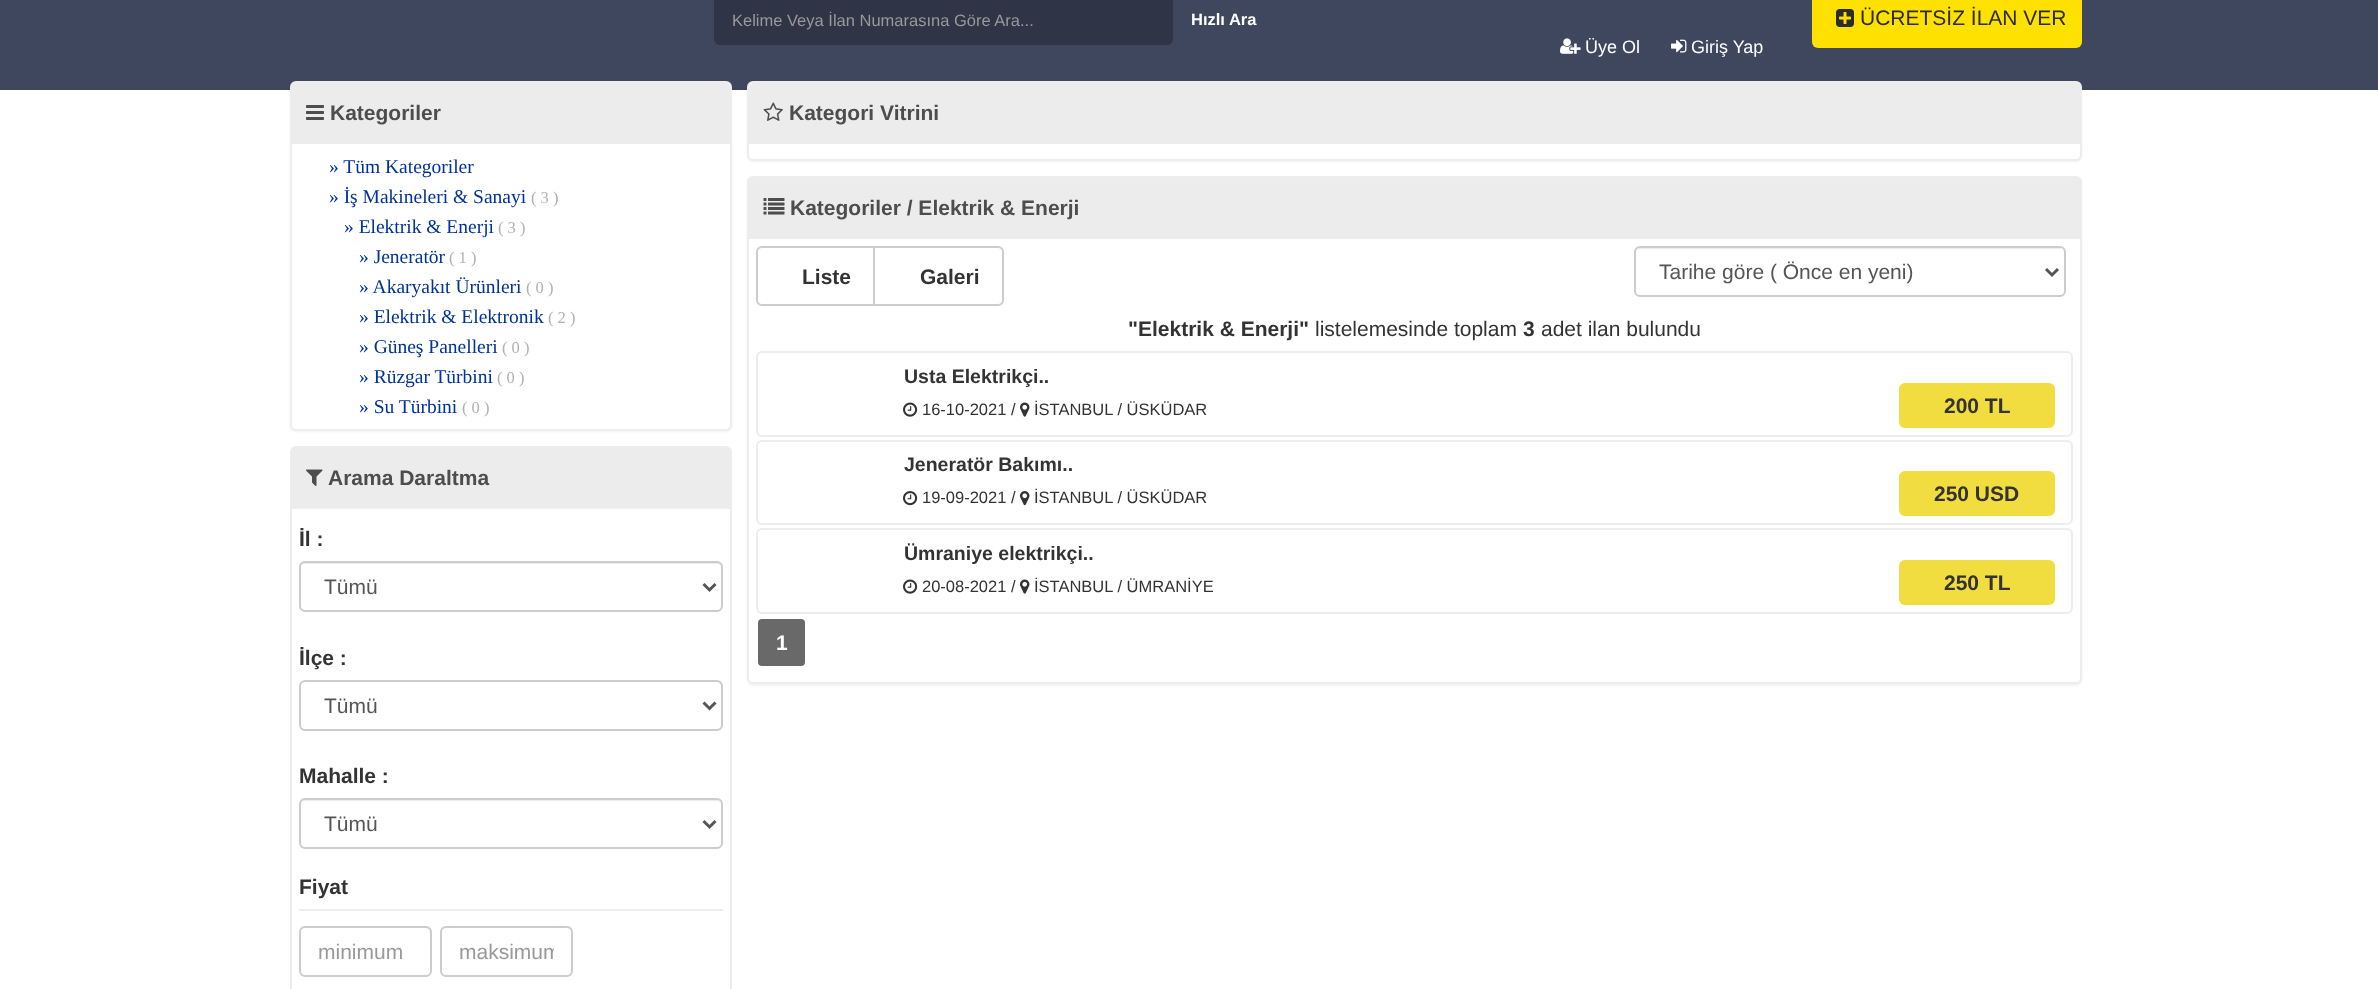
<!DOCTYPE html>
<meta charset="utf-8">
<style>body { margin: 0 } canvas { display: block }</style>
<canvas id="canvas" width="2378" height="989"></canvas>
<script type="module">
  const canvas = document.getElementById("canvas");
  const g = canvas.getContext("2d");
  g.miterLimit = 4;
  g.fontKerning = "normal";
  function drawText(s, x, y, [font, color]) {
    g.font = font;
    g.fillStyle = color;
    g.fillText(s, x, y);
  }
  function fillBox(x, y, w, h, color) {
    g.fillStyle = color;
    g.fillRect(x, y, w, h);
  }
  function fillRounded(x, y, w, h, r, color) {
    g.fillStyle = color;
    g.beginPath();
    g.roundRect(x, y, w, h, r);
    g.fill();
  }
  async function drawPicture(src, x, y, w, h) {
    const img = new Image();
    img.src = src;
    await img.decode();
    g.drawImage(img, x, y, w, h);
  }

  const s1 = ["16.5px Liberation Sans", "#999999"];
  const s2 = ["bold 16.5px Liberation Sans", "#FFFFFF"];
  const s3 = ["21px Liberation Sans", "#2C2C2C"];
  const s4 = ["18px Liberation Sans", "#FFFFFF"];
  const s5 = ["bold 21px Liberation Sans", "#4D4D4D"];
  const s6 = ["19.5px Liberation Serif", "#003399"];
  const s7 = ["16.5px Liberation Serif", "#B1B1B1"];
  const s8 = ["bold 21px Liberation Sans", "#333333"];
  const s9 = ["21px Liberation Sans", "#555555"];
  const s10 = ["21px Liberation Sans", "#999999"];
  const s11 = ["21px Liberation Sans", "#333333"];
  const s12 = ["bold 19.5px Liberation Sans", "#333333"];
  const s13 = ["16.5px Liberation Sans", "#333333"];
  const s14 = ["bold 21px Liberation Sans", "#FFFFFF"];

  fillBox(0, 0, 2378, 989, "#FFFFFF");
  fillBox(0, 0, 2378, 90, "#3F475F");
  fillRounded(714, -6, 459, 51, 6, "#2F3546");
  drawText("Kelime Veya İlan Numarasına Göre Ara...", 732, 26, s1);
  drawText("Hızlı Ara", 1191, 25, s2);
  fillRounded(1812, -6, 270, 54, 6, "#FFE100");
  await drawPicture("pic1.png", 1836, 9, 18, 18);
  drawText("ÜCRETSİZ İLAN VER", 1860, 25, s3);
  await drawPicture("pic2.png", 1560, 38, 21, 16);
  drawText("Üye Ol", 1585, 53, s4);
  await drawPicture("pic3.png", 1671, 39, 16, 14);
  drawText("Giriş Yap", 1691, 53, s4);
  g.fillStyle = "rgba(0, 0, 0, 0.05)";
  g.filter = "blur(1px)";
  g.beginPath();
  g.roundRect(290, 83, 442, 349, 6);
  g.fill();
  g.filter = "none";
  g.fillStyle = "#FFFFFF";
  g.beginPath();
  g.roundRect(291, 82, 440, 348, 5);
  g.fill();
  g.strokeStyle = "#EDEDED";
  g.lineWidth = 2;
  g.stroke();
  g.fillStyle = "#ECECEC";
  g.beginPath();
  g.roundRect(291, 83, 440, 61, [5, 5, 0, 0]);
  g.fill();
  await drawPicture("pic4.png", 306, 105, 18, 15);
  drawText("Kategoriler", 330, 120, s5);
  drawText("» Tüm Kategoriler", 329, 173, s6);
  drawText("» İş Makineleri & Sanayi", 329, 203, s6);
  drawText("( 3 )", 531, 203, s7);
  drawText("» Elektrik & Enerji", 344, 233, s6);
  drawText("( 3 )", 498, 233, s7);
  drawText("» Jeneratör", 359, 263, s6);
  drawText("( 1 )", 449, 263, s7);
  drawText("» Akaryakıt Ürünleri", 359, 293, s6);
  drawText("( 0 )", 526, 293, s7);
  drawText("» Elektrik & Elektronik", 359, 323, s6);
  drawText("( 2 )", 548, 323, s7);
  drawText("» Güneş Panelleri", 359, 353, s6);
  drawText("( 0 )", 502, 353, s7);
  drawText("» Rüzgar Türbini", 359, 383, s6);
  drawText("( 0 )", 497, 383, s7);
  drawText("» Su Türbini", 359, 413, s6);
  drawText("( 0 )", 462, 413, s7);
  g.beginPath();
  g.roundRect(291, 447, 440, 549, 5);
  g.stroke();
  g.fillStyle = "#ECECEC";
  g.beginPath();
  g.roundRect(291, 447, 440, 62, [5, 5, 0, 0]);
  g.fill();
  await drawPicture("pic5.png", 306, 469, 17, 17);
  drawText("Arama Daraltma", 328, 485, s5);
  drawText("İl :", 299, 546, s8);
  g.fillStyle = "#ECECEC";
  g.beginPath();
  g.moveTo(304, 564);
  g.lineTo(717, 564);
  g.bezierCurveTo(719, 564, 722, 566, 722, 568);
  g.bezierCurveTo(722, 565, 720, 563, 717, 563);
  g.lineTo(305, 563);
  g.bezierCurveTo(302, 563, 300, 565, 300, 568);
  g.bezierCurveTo(300, 566, 302, 564, 304, 564);
  g.closePath();
  g.fill();
  g.beginPath();
  g.roundRect(300, 562, 422, 49, 5);
  g.strokeStyle = "#CCCCCC";
  g.stroke();
  g.beginPath();
  g.moveTo(703.5, 584);
  g.lineTo(709.5, 590);
  g.lineTo(715.5, 584);
  g.strokeStyle = "#555555";
  g.lineWidth = 3;
  g.stroke();
  drawText("Tümü", 324, 594, s9);
  drawText("İlçe :", 299, 665, s8);
  g.fillStyle = "#ECECEC";
  g.beginPath();
  g.moveTo(304, 682);
  g.lineTo(717, 682);
  g.bezierCurveTo(719, 682, 722, 685, 722, 687);
  g.bezierCurveTo(722, 684, 720, 681, 717, 681);
  g.lineTo(305, 681);
  g.bezierCurveTo(302, 681, 300, 684, 300, 687);
  g.bezierCurveTo(300, 685, 302, 682, 304, 682);
  g.closePath();
  g.fill();
  g.beginPath();
  g.roundRect(300, 681, 422, 49, 5);
  g.strokeStyle = "#CCCCCC";
  g.lineWidth = 2;
  g.stroke();
  g.beginPath();
  g.moveTo(703.5, 702.5);
  g.lineTo(709.5, 708.5);
  g.lineTo(715.5, 702.5);
  g.strokeStyle = "#555555";
  g.lineWidth = 3;
  g.stroke();
  drawText("Tümü", 324, 713, s9);
  drawText("Mahalle :", 299, 783, s8);
  g.fillStyle = "#ECECEC";
  g.beginPath();
  g.moveTo(304, 801);
  g.lineTo(717, 801);
  g.bezierCurveTo(719, 801, 722, 803, 722, 806);
  g.bezierCurveTo(722, 803, 720, 800, 717, 800);
  g.lineTo(305, 800);
  g.bezierCurveTo(302, 800, 300, 803, 300, 806);
  g.bezierCurveTo(300, 803, 302, 801, 304, 801);
  g.closePath();
  g.fill();
  g.beginPath();
  g.roundRect(300, 799, 422, 49, 5);
  g.strokeStyle = "#CCCCCC";
  g.lineWidth = 2;
  g.stroke();
  g.beginPath();
  g.moveTo(703.5, 821);
  g.lineTo(709.5, 827);
  g.lineTo(715.5, 821);
  g.strokeStyle = "#555555";
  g.lineWidth = 3;
  g.stroke();
  drawText("Tümü", 324, 831, s9);
  fillBox(299, 909, 424, 2, "#EEEEEE");
  drawText("Fiyat", 299, 894, s8);
  g.fillStyle = "#ECECEC";
  g.beginPath();
  g.moveTo(304, 928);
  g.lineTo(406, 928);
  g.bezierCurveTo(432, 928, 430, 924, 430, 946);
  g.lineTo(430, 973);
  g.bezierCurveTo(431, 972, 431, 971, 431, 970);
  g.lineTo(431, 932);
  g.bezierCurveTo(431, 929, 429, 927, 426, 927);
  g.lineTo(305, 927);
  g.bezierCurveTo(302, 927, 300, 929, 300, 932);
  g.lineTo(300, 933);
  g.bezierCurveTo(300, 931, 302, 928, 304, 928);
  g.closePath();
  g.fill();
  g.beginPath();
  g.roundRect(300, 927, 131, 49, 5);
  g.strokeStyle = "#CCCCCC";
  g.lineWidth = 2;
  g.stroke();
  drawText("minimum", 318, 959, s10);
  g.fillStyle = "#ECECEC";
  g.beginPath();
  g.moveTo(446, 928);
  g.lineTo(567, 928);
  g.bezierCurveTo(569, 928, 572, 931, 572, 933);
  g.bezierCurveTo(572, 922, 551, 927, 547, 927);
  g.lineTo(466, 927);
  g.bezierCurveTo(462, 927, 441, 922, 441, 933);
  g.bezierCurveTo(441, 931, 443, 928, 446, 928);
  g.closePath();
  g.fill();
  g.beginPath();
  g.roundRect(441, 927, 131, 49, 5);
  g.stroke();
  g.save();
  g.beginPath();
  g.rect(459, 939, 95, 24);
  g.clip();
  drawText("maksimum", 459, 959, s10);
  g.restore();
  g.fillStyle = "rgba(0, 0, 0, 0.05)";
  g.filter = "blur(1px)";
  g.beginPath();
  g.roundRect(747, 83, 1335, 79, 6);
  g.fill();
  g.filter = "none";
  g.fillStyle = "#FFFFFF";
  g.beginPath();
  g.roundRect(748, 82, 1333, 78, 5);
  g.fill();
  g.strokeStyle = "#EDEDED";
  g.stroke();
  g.fillStyle = "#ECECEC";
  g.beginPath();
  g.roundRect(749, 83, 1332, 61, [5, 5, 0, 0]);
  g.fill();
  await drawPicture("pic6.png", 763, 102, 20, 19);
  drawText("Kategori Vitrini", 789, 120, s5);
  g.fillStyle = "rgba(0, 0, 0, 0.05)";
  g.filter = "blur(1px)";
  g.beginPath();
  g.roundRect(747, 177, 1335, 509, 6);
  g.fill();
  g.filter = "none";
  g.fillStyle = "#FFFFFF";
  g.beginPath();
  g.roundRect(748, 177, 1333, 506, 5);
  g.fill();
  g.stroke();
  g.fillStyle = "#ECECEC";
  g.beginPath();
  g.roundRect(749, 177, 1332, 62, [5, 5, 0, 0]);
  g.fill();
  await drawPicture("pic7.png", 763, 198, 22, 17);
  drawText("Kategoriler / Elektrik & Enerji", 790, 215, s5);
  g.beginPath();
  g.roundRect(757, 247, 117, 58, [5, 0, 0, 5]);
  g.strokeStyle = "#CCCCCC";
  g.stroke();
  drawText("Liste", 802, 284, s8);
  g.fillStyle = "#FFFFFF";
  g.beginPath();
  g.roundRect(874, 247, 129, 58, [0, 5, 5, 0]);
  g.fill();
  g.stroke();
  drawText("Galeri", 920, 284, s8);
  g.fillStyle = "#ECECEC";
  g.beginPath();
  g.moveTo(1640, 249);
  g.lineTo(2060, 249);
  g.bezierCurveTo(2062, 249, 2064, 251, 2064, 254);
  g.bezierCurveTo(2064, 251, 2062, 248, 2059, 248);
  g.lineTo(1640, 248);
  g.bezierCurveTo(1637, 248, 1635, 251, 1635, 254);
  g.bezierCurveTo(1635, 251, 1637, 249, 1640, 249);
  g.closePath();
  g.fill();
  g.beginPath();
  g.roundRect(1635, 247, 430, 49, 5);
  g.stroke();
  g.beginPath();
  g.moveTo(2046, 269);
  g.lineTo(2052, 275);
  g.lineTo(2058, 269);
  g.strokeStyle = "#555555";
  g.lineWidth = 3;
  g.stroke();
  drawText("Tarihe göre ( Önce en yeni)", 1659, 279, s9);
  drawText("\"Elektrik & Enerji\"", 1128, 336, s8);
  drawText("listelemesinde toplam", 1315, 336, s11);
  drawText("3", 1523, 336, s8);
  drawText("adet ilan bulundu", 1541, 336, s11);
  g.beginPath();
  g.roundRect(757, 352, 1315, 84, 5);
  g.strokeStyle = "#EDEDED";
  g.lineWidth = 2;
  g.stroke();
  drawText("Usta Elektrikçi..", 904, 383, s12);
  await drawPicture("pic8.png", 903, 402, 15, 15);
  drawText("16-10-2021 /", 922, 415, s13);
  await drawPicture("pic9.png", 1020, 402, 10, 15);
  drawText("İSTANBUL / ÜSKÜDAR", 1034, 415, s13);
  fillRounded(1899, 383, 156, 45, 6, "#F2DD41");
  drawText("200 TL", 1944, 413, s8);
  g.beginPath();
  g.roundRect(757, 441, 1315, 83, 5);
  g.stroke();
  drawText("Jeneratör Bakımı..", 904, 471, s12);
  await drawPicture("pic10.png", 903, 491, 15, 15);
  drawText("19-09-2021 /", 922, 503, s13);
  await drawPicture("pic11.png", 1020, 491, 10, 15);
  drawText("İSTANBUL / ÜSKÜDAR", 1034, 503, s13);
  fillRounded(1899, 471, 156, 45, 6, "#F2DD41");
  drawText("250 USD", 1934, 501, s8);
  g.beginPath();
  g.roundRect(757, 529, 1315, 84, 5);
  g.stroke();
  drawText("Ümraniye elektrikçi..", 904, 560, s12);
  await drawPicture("pic8.png", 903, 579, 15, 15);
  drawText("20-08-2021 /", 922, 592, s13);
  await drawPicture("pic9.png", 1020, 579, 10, 15);
  drawText("İSTANBUL / ÜMRANİYE", 1034, 592, s13);
  fillRounded(1899, 560, 156, 45, 6, "#F2DD41");
  drawText("250 TL", 1944, 590, s8);
  g.fillStyle = "#696969";
  g.beginPath();
  g.roundRect(757, 618, 49, 49, 5);
  g.fill();
  g.strokeStyle = "#FFFFFF";
  g.stroke();
  drawText("1", 776, 650, s14);
</script>
